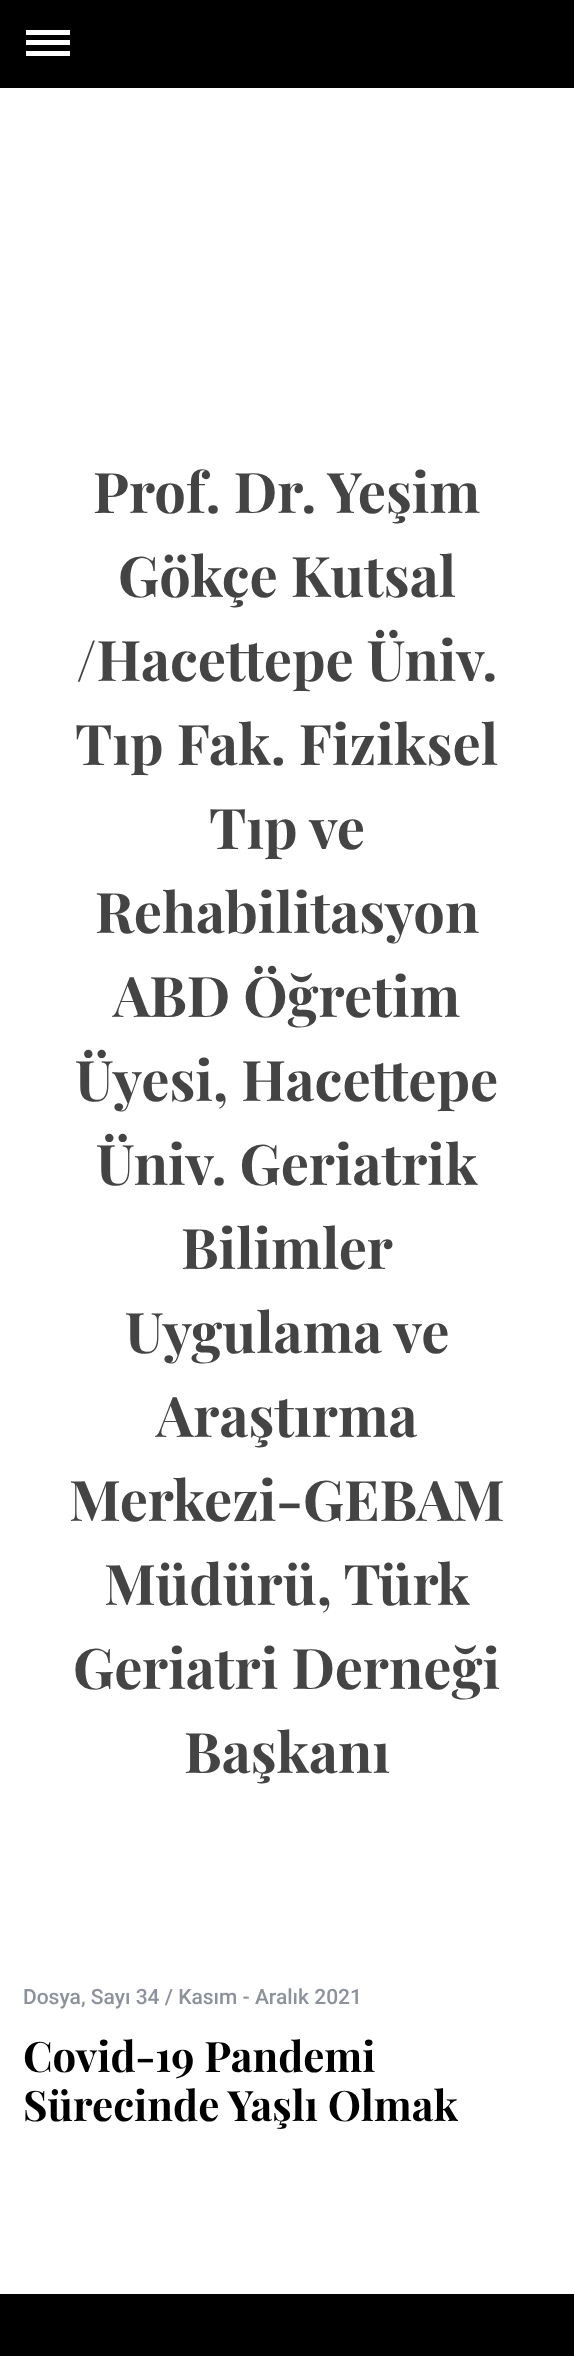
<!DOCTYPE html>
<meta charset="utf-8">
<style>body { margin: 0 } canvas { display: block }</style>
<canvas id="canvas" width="574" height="2356"></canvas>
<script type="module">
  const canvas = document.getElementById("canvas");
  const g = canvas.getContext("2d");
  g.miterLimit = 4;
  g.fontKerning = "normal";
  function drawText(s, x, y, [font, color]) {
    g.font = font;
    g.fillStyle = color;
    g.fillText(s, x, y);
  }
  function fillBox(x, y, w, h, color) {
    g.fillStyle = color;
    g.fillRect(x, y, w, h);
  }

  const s1 = ["bold 56px Playfair Display", "#444444"];
  const s2 = ["500 21px Roboto", "#8C919B"];
  const s3 = ["bold 42px Playfair Display", "#000000"];

  fillBox(0, 0, 574, 2356, "#FFFFFF");
  fillBox(0, 0, 574, 88, "#000000");
  fillBox(26, 40, 44, 5, "#FFFFFF");
  fillBox(26, 30, 44, 5, "#FFFFFF");
  fillBox(26, 51, 44, 5, "#FFFFFF");
  drawText("Prof. Dr. Yeşim", 93, 513, s1);
  drawText("Gökçe Kutsal", 118, 597, s1);
  drawText("/Hacettepe Üniv.", 76, 681, s1);
  drawText("Tıp Fak. Fiziksel", 75, 765, s1);
  drawText("Tıp ve", 209, 849, s1);
  drawText("Rehabilitasyon", 95, 933, s1);
  drawText("ABD Öğretim", 113, 1017, s1);
  drawText("Üyesi, Hacettepe", 75, 1101, s1);
  drawText("Üniv. Geriatrik", 96, 1185, s1);
  drawText("Bilimler", 181, 1269, s1);
  drawText("Uygulama ve", 125, 1353, s1);
  drawText("Araştırma", 156, 1437, s1);
  drawText("Merkezi-GEBAM", 69, 1521, s1);
  drawText("Müdürü, Türk", 104, 1605, s1);
  drawText("Geriatri Derneği", 73, 1689, s1);
  drawText("Başkanı", 184, 1773, s1);
  drawText("Dosya, Sayı 34 / Kasım - Aralık 2021", 23, 2004, s2);
  drawText("Covid-19 Pandemi", 23, 2072, s3);
  drawText("Sürecinde Yaşlı Olmak", 23, 2121, s3);
  fillBox(0, 2294, 574, 62, "#000000");
</script>
